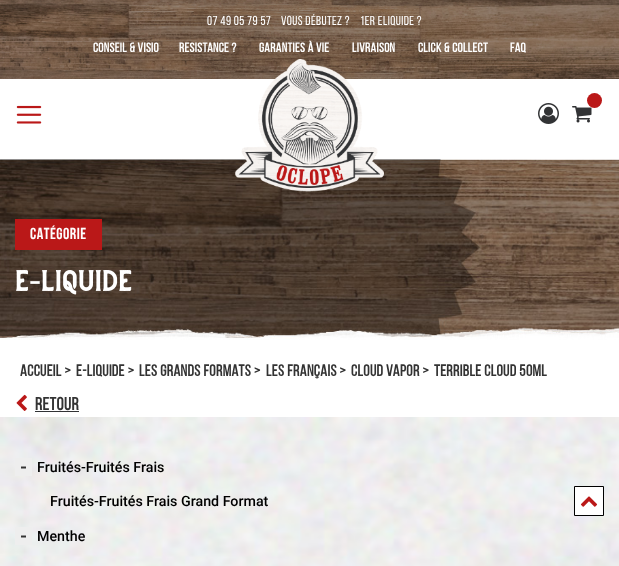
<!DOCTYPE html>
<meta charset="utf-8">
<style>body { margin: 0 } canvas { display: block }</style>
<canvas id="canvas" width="619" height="566"></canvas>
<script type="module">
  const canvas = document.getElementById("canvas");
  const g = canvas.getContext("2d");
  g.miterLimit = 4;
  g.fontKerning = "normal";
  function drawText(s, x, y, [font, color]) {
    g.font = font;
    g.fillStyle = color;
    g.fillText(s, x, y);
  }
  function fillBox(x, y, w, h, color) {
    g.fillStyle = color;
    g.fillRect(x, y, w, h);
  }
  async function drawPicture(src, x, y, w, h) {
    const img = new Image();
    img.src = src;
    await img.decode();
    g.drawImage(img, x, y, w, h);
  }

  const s1 = ["13px Bebas Neue", "#FFFFFF"];
  const s2 = ["bold 13px 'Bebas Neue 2'", "#FFFFFF"];
  const s3 = ["bold 16px Bebas Neue", "#FFFFFF"];
  const s4 = ["36px Liberation Serif", "#FFFFFF"];
  const s5 = ["bold 16px 'Bebas Neue 2'", "#333333"];
  const s6 = ["bold 18px 'Bebas Neue 2'", "#333333"];
  const s7 = ["bold 18px Roboto", "#333333"];
  const s8 = ["500 14.25px Roboto", "#000000"];

  fillBox(0, 0, 619, 566, "#FFFFFF");
  await drawPicture("pic1.png", 0, 0, 619, 79);
  g.letterSpacing = "0.4px";
  drawText("07 49 05 79 57", 207, 25, s1);
  drawText("VOUS DÉBUTEZ ?", 281, 25, s1);
  drawText("1er ELIQUIDE ?", 360, 25, s1);
  drawText("CONSEIL & VISIO", 93, 52, s2);
  drawText("RESISTANCE ?", 179, 52, s2);
  drawText("GARANTIES À VIE", 259, 52, s2);
  drawText("LIVRAISON", 352, 52, s2);
  drawText("CLICK & COLLECT", 418, 52, s2);
  drawText("FAQ", 510, 52, s2);
  await drawPicture("pic2.png", 16, 105, 26, 19);
  await drawPicture("pic6.png", 0, 159, 619, 181);
  await drawPicture("pic3.png", 235, 59, 149, 133);
  await drawPicture("pic4.png", 538, 103, 21, 21);
  await drawPicture("pic5.png", 572, 106, 20, 17);
  g.fillStyle = "#BA1818";
  g.beginPath();
  g.arc(594.5, 100.5, 7.5, 0, Math.PI * 2);
  g.fill();
  fillBox(15, 219, 87, 31, "#BA1818");
  g.letterSpacing = "0.5px";
  drawText("CATÉGORIE", 30, 239, s3);
  await drawPicture("pic7.png", 16, 270, 12, 21);
  g.letterSpacing = "0px";
  drawText("-", 29, 291, s4);
  await drawPicture("pic8.png", 42, 270, 90, 25);
  g.letterSpacing = "0.4px";
  drawText("ACCUEIL >", 20, 376, s5);
  drawText("E-LIQUIDE >", 76, 376, s5);
  drawText("LES GRANDS FORMATS >", 139, 376, s5);
  drawText("LES FRANÇAIS >", 266, 376, s5);
  drawText("CLOUD VAPOR >", 351, 376, s5);
  drawText("TERRIBLE CLOUD 50ML", 434, 376, s5);
  await drawPicture("pic9.png", 16, 394, 11, 17);
  g.letterSpacing = "0.5px";
  drawText("RETOUR", 35, 410, s6);
  fillBox(35, 411, 44, 1, "#323335");
  await drawPicture("pic10.png", 0, 417, 619, 149);
  fillBox(15, 458, 17, 18, "#EEEEEE");
  g.letterSpacing = "0px";
  drawText("-", 20, 473, s7);
  drawText("Fruités-Fruités Frais", 37, 472, s8);
  drawText("Fruités-Fruités Frais Grand Format", 50, 506, s8);
  fillBox(15, 527, 17, 18, "#EEEEEE");
  drawText("-", 20, 542, s7);
  drawText("Menthe", 37, 541, s8);
  g.fillStyle = "#FFFFFF";
  g.beginPath();
  g.rect(574.5, 486.5, 29, 29);
  g.fill();
  g.strokeStyle = "#000000";
  g.stroke();
  await drawPicture("pic11.png", 580, 496, 18, 11);
</script>
